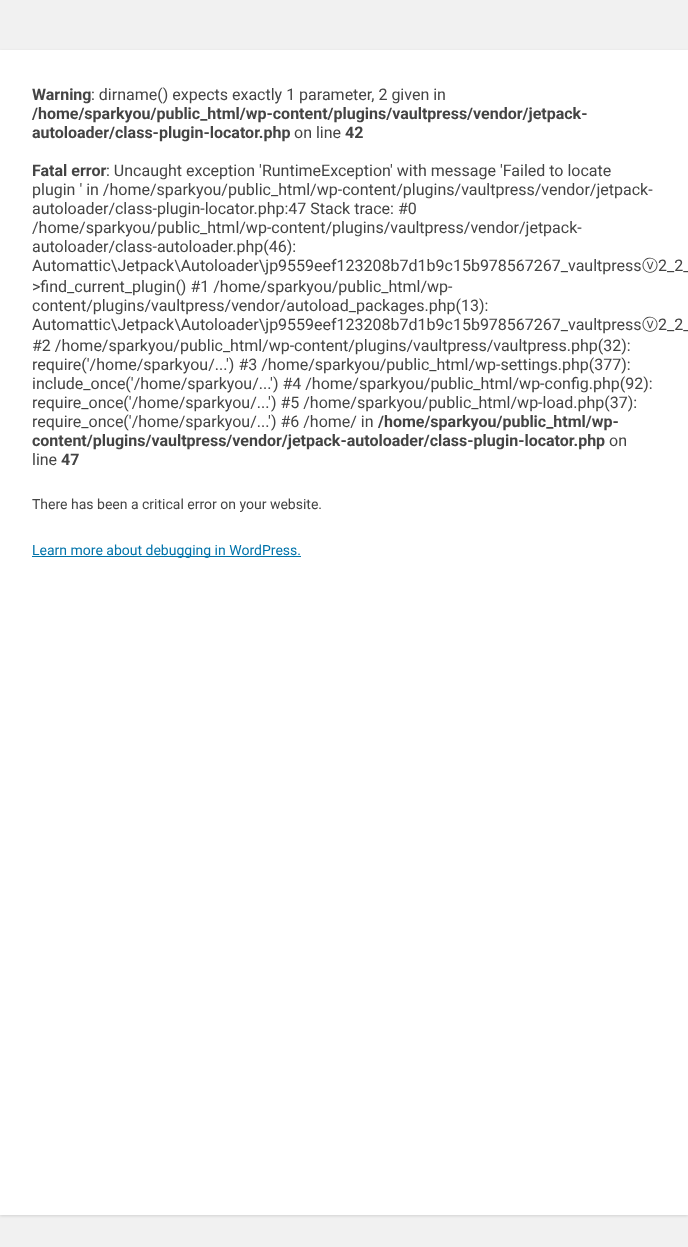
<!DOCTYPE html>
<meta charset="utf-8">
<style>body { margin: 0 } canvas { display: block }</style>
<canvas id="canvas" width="688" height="1247"></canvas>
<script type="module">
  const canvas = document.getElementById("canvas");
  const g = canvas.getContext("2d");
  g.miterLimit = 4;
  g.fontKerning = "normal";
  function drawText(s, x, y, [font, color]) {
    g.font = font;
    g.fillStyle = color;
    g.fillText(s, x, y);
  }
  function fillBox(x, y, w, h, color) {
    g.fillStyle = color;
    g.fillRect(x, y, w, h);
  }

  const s1 = ["bold 16px Roboto", "#444444"];
  const s2 = ["16px Roboto", "#444444"];
  const s3 = ["500 16px WenQuanYi Zen Hei", "#444444"];
  const s4 = ["14px Roboto", "#444444"];
  const s5 = ["14px Roboto", "#0073AA"];

  fillBox(0, 0, 688, 1247, "#F1F1F1");
  g.fillStyle = "rgba(0, 0, 0, 0.13)";
  g.filter = "blur(1.5px)";
  g.beginPath();
  g.rect(0, 51, 688, 1165);
  g.fill();
  g.filter = "none";
  fillBox(0, 50, 688, 1165, "#FFFFFF");
  drawText("Warning", 32, 100, s1);
  drawText(": dirname() expects exactly 1 parameter, 2 given in", 91, 100, s2);
  drawText("/home/sparkyou/public_html/wp-content/plugins/vaultpress/vendor/jetpack-", 32, 119, s1);
  drawText("autoloader/class-plugin-locator.php", 32, 138, s1);
  drawText("on line", 294, 138, s2);
  drawText("42", 345, 138, s1);
  drawText("Fatal error", 32, 176, s1);
  drawText(": Uncaught exception 'RuntimeException' with message 'Failed to locate", 106, 176, s2);
  drawText("plugin ' in /home/sparkyou/public_html/wp-content/plugins/vaultpress/vendor/jetpack-", 32, 195, s2);
  drawText("autoloader/class-plugin-locator.php:47 Stack trace: #0", 32, 214, s2);
  drawText("/home/sparkyou/public_html/wp-content/plugins/vaultpress/vendor/jetpack-", 32, 233, s2);
  drawText("autoloader/class-autoloader.php(46):", 32, 252, s2);
  drawText("Automattic\\Jetpack\\Autoloader\\jp9559eef123208b7d1b9c15b978567267_vaultpress", 32, 271, s2);
  drawText("ⓥ", 642, 271, s3);
  drawText("2_2_", 658, 271, s2);
  drawText(">find_current_plugin() #1 /home/sparkyou/public_html/wp-", 32, 292, s2);
  drawText("content/plugins/vaultpress/vendor/autoload_packages.php(13):", 32, 311, s2);
  drawText("Automattic\\Jetpack\\Autoloader\\jp9559eef123208b7d1b9c15b978567267_vaultpress", 32, 330, s2);
  drawText("ⓥ", 642, 330, s3);
  drawText("2_2_", 658, 330, s2);
  drawText("#2 /home/sparkyou/public_html/wp-content/plugins/vaultpress/vaultpress.php(32):", 32, 351, s2);
  drawText("require('/home/sparkyou/...') #3 /home/sparkyou/public_html/wp-settings.php(377):", 32, 370, s2);
  drawText("include_once('/home/sparkyou/...') #4 /home/sparkyou/public_html/wp-config.php(92):", 32, 389, s2);
  drawText("require_once('/home/sparkyou/...') #5 /home/sparkyou/public_html/wp-load.php(37):", 32, 408, s2);
  drawText("require_once('/home/sparkyou/...') #6 /home/ in", 32, 427, s2);
  drawText("/home/sparkyou/public_html/wp-", 378, 427, s1);
  drawText("content/plugins/vaultpress/vendor/jetpack-autoloader/class-plugin-locator.php", 32, 446, s1);
  drawText("on", 609, 446, s2);
  drawText("line", 32, 465, s2);
  drawText("47", 61, 465, s1);
  drawText("There has been a critical error on your website.", 32, 509, s4);
  fillBox(32, 556, 269, 1, "#0073AA");
  drawText("Learn more about debugging in WordPress.", 32, 555, s5);
</script>
